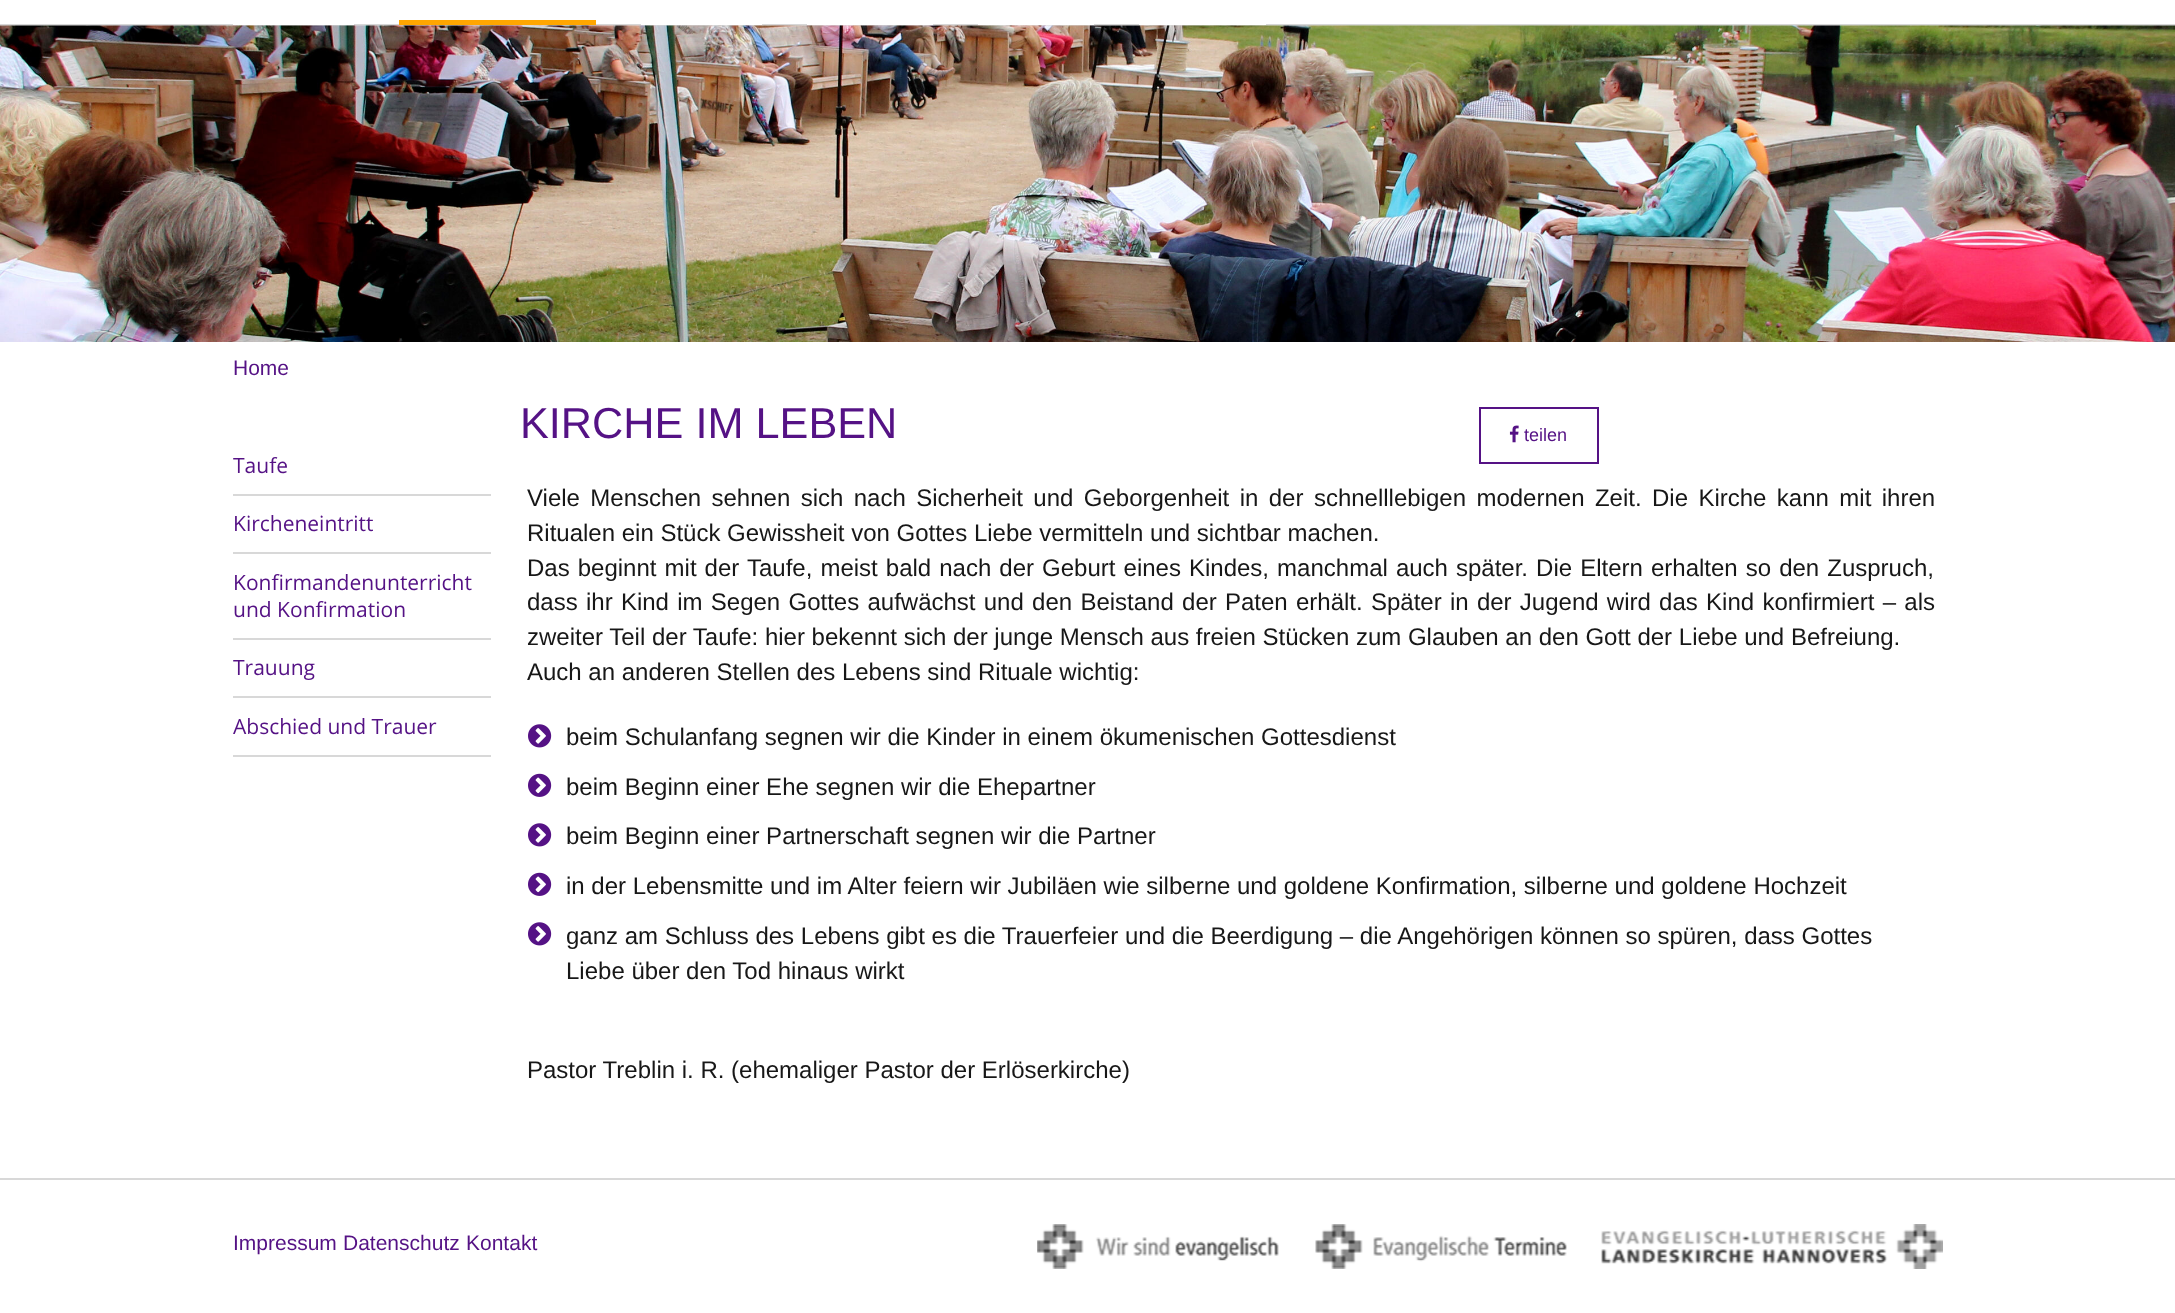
<!DOCTYPE html>
<meta charset="utf-8">
<style>body { margin: 0 } canvas { display: block }</style>
<canvas id="canvas" width="2175" height="1313"></canvas>
<script type="module">
  const canvas = document.getElementById("canvas");
  const g = canvas.getContext("2d");
  g.miterLimit = 4;
  g.fontKerning = "normal";
  function drawText(s, x, y, [font, color]) {
    g.font = font;
    g.fillStyle = color;
    g.fillText(s, x, y);
  }
  function fillBox(x, y, w, h, color) {
    g.fillStyle = color;
    g.fillRect(x, y, w, h);
  }
  async function drawPicture(src, x, y, w, h) {
    const img = new Image();
    img.src = src;
    await img.decode();
    g.drawImage(img, x, y, w, h);
  }

  const s1 = ["21px Liberation Sans", "#551285"];
  const s2 = ["21px Open Sans", "#551285"];
  const s3 = ["43.25px Liberation Sans", "#551285"];
  const s4 = ["18px Liberation Sans", "#551285"];
  const s5 = ["24px Liberation Sans", "#171717"];

  fillBox(0, 0, 2175, 1313, "#FFFFFF");
  fillBox(0, 24, 2175, 2, "#D8D8D8");
  fillBox(233, 24, 121, 1, "#FFFFFF");
  fillBox(399, 20, 197, 5, "#FFA600");
  fillBox(641, 24, 121, 1, "#FFFFFF");
  fillBox(807, 24, 126, 1, "#FFFFFF");
  fillBox(978, 24, 116, 1, "#FFFFFF");
  fillBox(1139, 24, 127, 1, "#FFFFFF");
  await drawPicture("pic1.png", 0, 25, 2175, 317);
  drawText("Home", 233, 375, s1);
  fillBox(233, 494, 258, 2, "#D8D8D8");
  drawText("Taufe", 233, 473, s2);
  fillBox(233, 552, 258, 2, "#D8D8D8");
  drawText("Kircheneintritt", 233, 531, s2);
  fillBox(233, 638, 258, 2, "#D8D8D8");
  drawText("Konfirmandenunterricht", 233, 590, s2);
  drawText("und Konfirmation", 233, 617, s2);
  fillBox(233, 696, 258, 2, "#D8D8D8");
  drawText("Trauung", 233, 675, s2);
  fillBox(233, 755, 258, 2, "#D8D8D8");
  drawText("Abschied und Trauer", 233, 734, s2);
  drawText("KIRCHE IM LEBEN", 520, 438, s3);
  g.strokeStyle = "#551285";
  g.lineWidth = 2;
  g.strokeRect(1480, 408, 118, 55);
  await drawPicture("pic2.png", 1509, 425, 10, 18);
  drawText("teilen", 1524, 441, s4);
  g.wordSpacing = "3.75px";
  drawText("Viele Menschen sehnen sich nach Sicherheit und Geborgenheit in der schnelllebigen modernen Zeit. Die Kirche kann mit ihren", 527, 506, s5);
  g.wordSpacing = "0px";
  drawText("Ritualen ein Stück Gewissheit von Gottes Liebe vermitteln und sichtbar machen.", 527, 541, s5);
  g.wordSpacing = "1.4px";
  drawText("Das beginnt mit der Taufe, meist bald nach der Geburt eines Kindes, manchmal auch später. Die Eltern erhalten so den Zuspruch,", 527, 576, s5);
  g.wordSpacing = "1.6px";
  drawText("dass ihr Kind im Segen Gottes aufwächst und den Beistand der Paten erhält. Später in der Jugend wird das Kind konfirmiert – als", 527, 610, s5);
  g.wordSpacing = "0px";
  drawText("zweiter Teil der Taufe: hier bekennt sich der junge Mensch aus freien Stücken zum Glauben an den Gott der Liebe und Befreiung.", 527, 645, s5);
  drawText("Auch an anderen Stellen des Lebens sind Rituale wichtig:", 527, 680, s5);
  await drawPicture("pic3.png", 528, 724, 24, 24);
  drawText("beim Schulanfang segnen wir die Kinder in einem ökumenischen Gottesdienst", 566, 745, s5);
  await drawPicture("pic4.png", 528, 773, 24, 24);
  drawText("beim Beginn einer Ehe segnen wir die Ehepartner", 566, 795, s5);
  await drawPicture("pic3.png", 528, 823, 24, 24);
  drawText("beim Beginn einer Partnerschaft segnen wir die Partner", 566, 844, s5);
  await drawPicture("pic4.png", 528, 872, 24, 24);
  drawText("in der Lebensmitte und im Alter feiern wir Jubiläen wie silberne und goldene Konfirmation, silberne und goldene Hochzeit", 566, 894, s5);
  await drawPicture("pic3.png", 528, 922, 24, 24);
  drawText("ganz am Schluss des Lebens gibt es die Trauerfeier und die Beerdigung – die Angehörigen können so spüren, dass Gottes", 566, 944, s5);
  drawText("Liebe über den Tod hinaus wirkt", 566, 979, s5);
  drawText("Pastor Treblin i. R. (ehemaliger Pastor der Erlöserkirche)", 527, 1078, s5);
  fillBox(0, 1178, 2175, 2, "#D8D8D8");
  drawText("Impressum", 233, 1250, s1);
  drawText("Datenschutz", 343, 1250, s1);
  drawText("Kontakt", 466, 1250, s1);
  await drawPicture("pic5.png", 1037, 1224, 242, 45);
  await drawPicture("pic6.png", 1315, 1224, 252, 45);
  await drawPicture("pic7.png", 1601, 1224, 342, 45);
</script>
